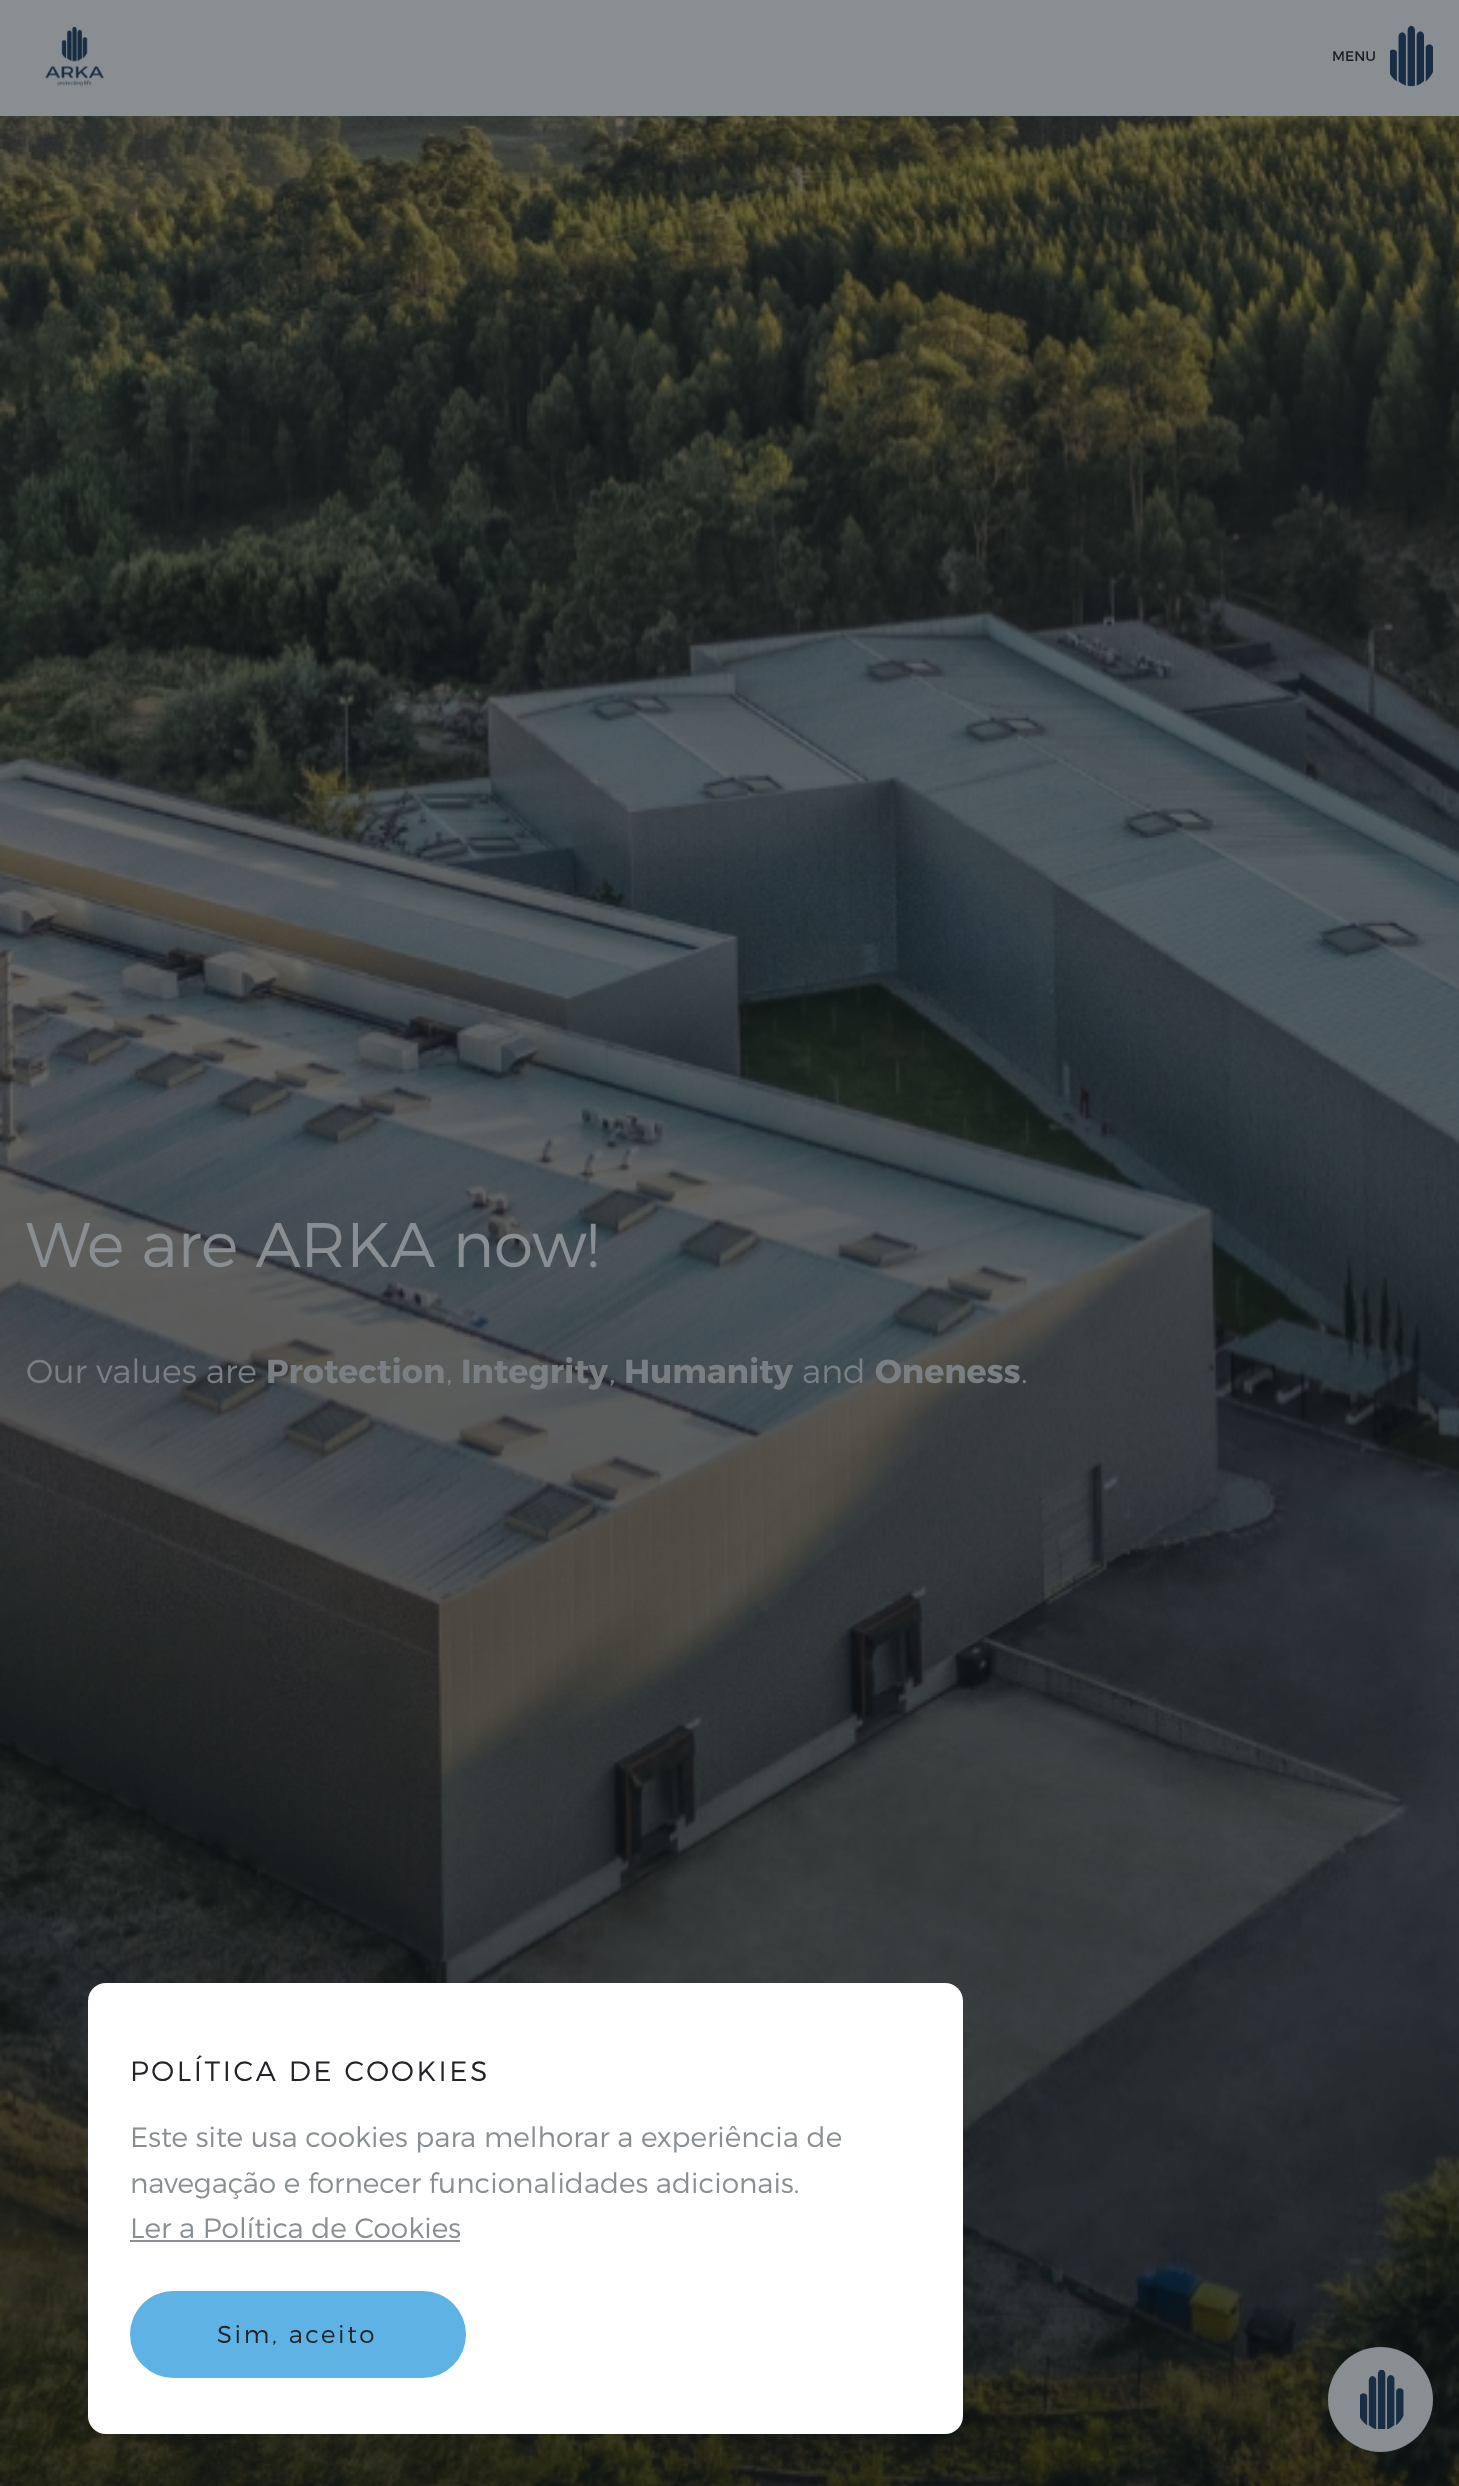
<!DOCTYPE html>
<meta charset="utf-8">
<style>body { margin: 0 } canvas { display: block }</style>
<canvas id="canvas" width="1459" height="2486"></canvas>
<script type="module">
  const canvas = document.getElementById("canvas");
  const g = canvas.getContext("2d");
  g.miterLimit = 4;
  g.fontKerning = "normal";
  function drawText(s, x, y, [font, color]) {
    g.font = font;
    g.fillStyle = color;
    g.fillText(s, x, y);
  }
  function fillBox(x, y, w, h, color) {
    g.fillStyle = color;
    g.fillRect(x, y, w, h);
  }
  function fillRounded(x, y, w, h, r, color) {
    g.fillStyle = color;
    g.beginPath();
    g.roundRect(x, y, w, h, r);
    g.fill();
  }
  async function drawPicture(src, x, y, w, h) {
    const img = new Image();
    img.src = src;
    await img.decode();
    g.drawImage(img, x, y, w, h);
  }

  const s1 = ["14px Montserrat", "#1A2026"];
  const s2 = ["300 63px Montserrat", "#888E91"];
  const s3 = ["300 33.25px Montserrat", "#7A7F83"];
  const s4 = ["bold 33.25px Montserrat", "#7A7F83"];
  const s5 = ["300 28px Montserrat", "#222328"];
  const s6 = ["300 28px Montserrat", "#888E91"];
  const s7 = ["300 24.5px Montserrat", "#222328"];

  fillBox(0, 0, 1459, 2486, "#FFFFFF");
  await drawPicture("pic3.png", 0, 116, 1459, 2370);
  g.fillStyle = "rgba(20, 75, 92, 0.1)";
  g.filter = "blur(2.5px)";
  g.beginPath();
  g.rect(0, 2, 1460, 115);
  g.fill();
  g.filter = "none";
  fillBox(0, 0, 1459, 116, "#888E91");
  await drawPicture("pic1.png", 45, 26, 59, 61);
  drawText("MENU", 1332, 61, s1);
  await drawPicture("pic2.png", 1390, 25, 43, 62);
  drawText("We are ARKA now!", 26, 1267, s2);
  drawText("Our values are", 26, 1383, s3);
  drawText("Protection", 266, 1383, s4);
  drawText(",", 446, 1383, s3);
  drawText("Integrity", 461, 1383, s4);
  drawText(",", 609, 1383, s3);
  drawText("Humanity", 624, 1383, s4);
  drawText("and", 802, 1383, s3);
  drawText("Oneness", 875, 1383, s4);
  drawText(".", 1021, 1383, s3);
  fillRounded(88, 1983, 875, 451, 18, "#FFFFFF");
  g.letterSpacing = "2.6px";
  drawText("POLÍTICA DE COOKIES", 130, 2081, s5);
  g.letterSpacing = "0px";
  drawText("Este site usa cookies para melhorar a experiência de", 130, 2147, s6);
  drawText("navegação e fornecer funcionalidades adicionais.", 130, 2193, s6);
  drawText("Ler a Política de Cookies", 130, 2238, s6);
  fillBox(130, 2240, 330, 2, "#8C8F94");
  fillRounded(130, 2291, 336, 87, 43.5, "#5EB3E4");
  g.letterSpacing = "2.6px";
  drawText("Sim, aceito", 217, 2343, s7);
  g.fillStyle = "#888E91";
  g.beginPath();
  g.arc(1380.5, 2399.5, 52.5, 0, Math.PI * 2);
  g.fill();
  await drawPicture("pic4.png", 1360, 2370, 44, 59);
</script>
